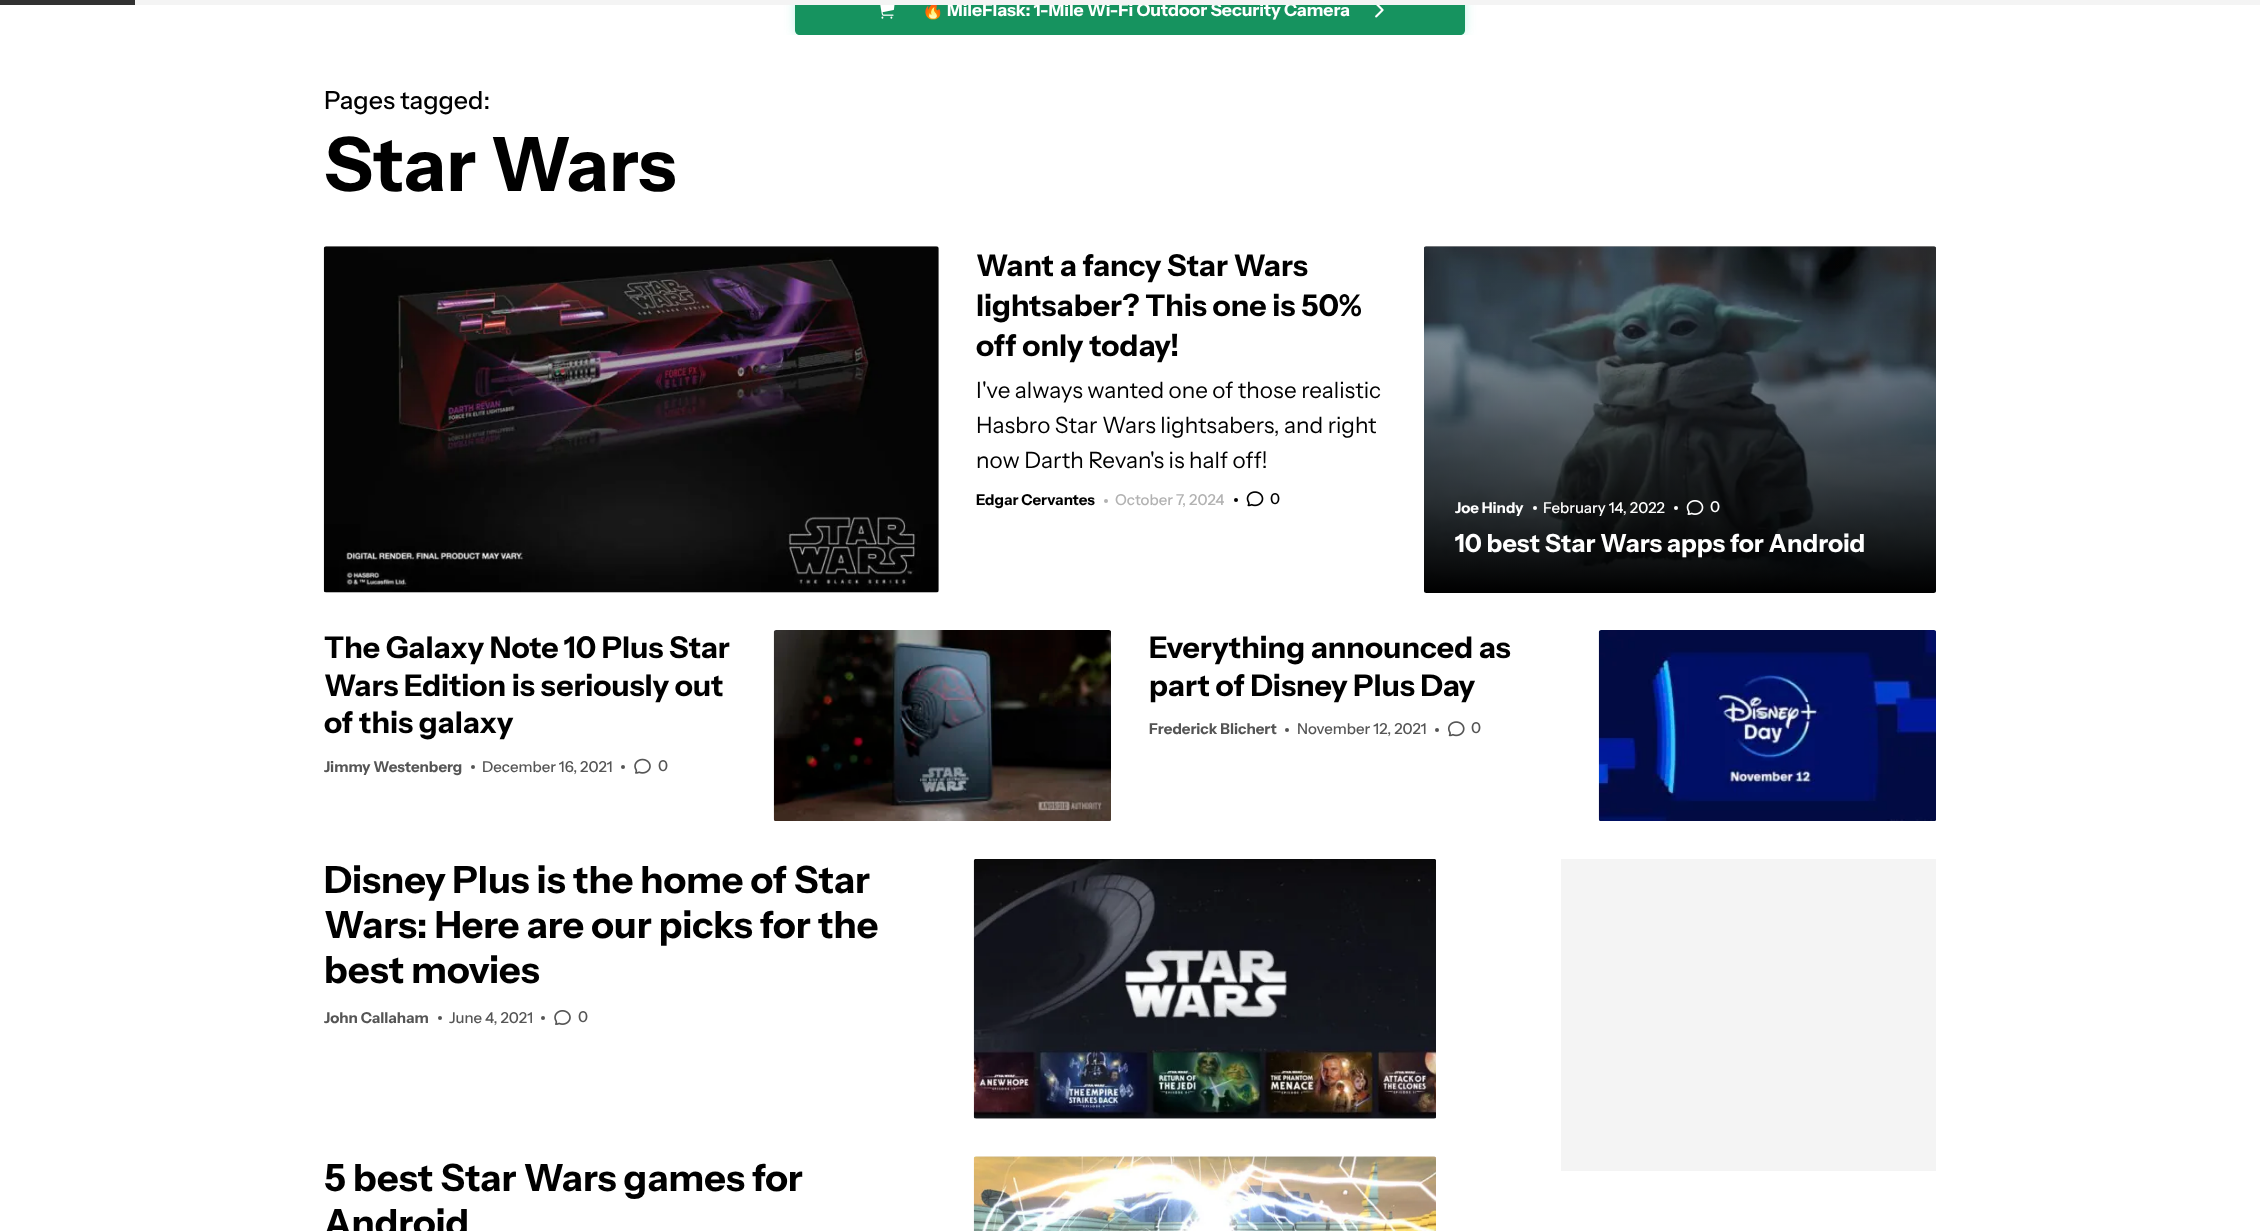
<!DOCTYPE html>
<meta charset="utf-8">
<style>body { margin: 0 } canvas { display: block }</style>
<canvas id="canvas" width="2260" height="1231"></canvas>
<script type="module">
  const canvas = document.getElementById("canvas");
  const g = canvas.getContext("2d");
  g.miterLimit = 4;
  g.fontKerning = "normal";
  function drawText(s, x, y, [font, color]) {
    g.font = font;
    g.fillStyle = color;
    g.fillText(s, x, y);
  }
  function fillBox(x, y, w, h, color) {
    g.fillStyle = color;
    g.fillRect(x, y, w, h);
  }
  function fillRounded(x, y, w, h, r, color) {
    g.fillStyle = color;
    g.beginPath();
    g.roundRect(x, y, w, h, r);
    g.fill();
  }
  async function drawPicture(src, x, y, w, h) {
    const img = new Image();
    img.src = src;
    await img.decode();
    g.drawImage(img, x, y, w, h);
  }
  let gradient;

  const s1 = ["bold 17.5px Noto Color Emoji", "#FFFFFF"];
  const s2 = ["bold 17.5px Instrument Sans", "#FFFFFF"];
  const s3 = ["500 25px Instrument Sans", "#000000"];
  const s4 = ["bold 75px Instrument Sans", "#000000"];
  const s5 = ["bold 30px Instrument Sans", "#000000"];
  const s6 = ["22.5px Instrument Sans", "#000000"];
  const s7 = ["bold 15px Instrument Sans", "#000000"];
  const s8 = ["500 15px Instrument Sans", "#B2B2B2"];
  const s9 = ["500 15px Instrument Sans", "#000000"];
  const s10 = ["bold 15px Instrument Sans", "#FFFFFF"];
  const s11 = ["500 15px Instrument Sans", "#FFFFFF"];
  const s12 = ["bold 25px Instrument Sans", "#FFFFFF"];
  const s13 = ["bold 15px Instrument Sans", "#555555"];
  const s14 = ["500 15px Instrument Sans", "#555555"];
  const s15 = ["bold 37.5px Instrument Sans", "#000000"];

  fillBox(0, 0, 2260, 1231, "#FFFFFF");
  g.save();
  g.beginPath();
  g.rect(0, 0, 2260, 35);
  g.clip();
  g.fillStyle = "rgba(0, 212, 159, 0.5)";
  g.filter = "blur(7.5px)";
  g.beginPath();
  g.rect(800, -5, 660, 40);
  g.fill();
  g.filter = "none";
  g.restore();
  g.fillStyle = "#16935F";
  g.beginPath();
  g.moveTo(795, -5);
  g.lineTo(1465, -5);
  g.lineTo(1465, 30);
  g.bezierCurveTo(1465, 33, 1463, 35, 1460, 35);
  g.lineTo(800, 35);
  g.bezierCurveTo(797, 35, 795, 33, 795, 30);
  g.closePath();
  g.fill();
  drawText("🔥", 922, 16, s1);
  drawText("MileFlask: 1-Mile Wi-Fi Outdoor Security Camera", 947, 16, s2);
  fillBox(135, 0, 2125, 5, "#F4F4F4");
  fillBox(0, 0, 135, 5, "#313131");
  await drawPicture("pic1.png", 880, 5, 15, 14);
  await drawPicture("pic2.png", 1375, 5, 9, 13);
  drawText("Pages tagged:", 324, 109, s3);
  drawText("Star Wars", 324, 191, s4);
  fillRounded(324, 246, 615, 347, 2.5, "#F4F4F4");
  await drawPicture("pic3.png", 323, 246, 616, 347);
  drawText("Want a fancy Star Wars", 976, 276, s5);
  drawText("lightsaber? This one is 50%", 976, 316, s5);
  drawText("off only today!", 976, 356, s5);
  drawText("I've always wanted one of those realistic", 976, 398, s6);
  drawText("Hasbro Star Wars lightsabers, and right", 976, 433, s6);
  drawText("now Darth Revan's is half off!", 976, 468, s6);
  drawText("Edgar Cervantes", 976, 505, s7);
  g.fillStyle = "#B2B2B2";
  g.beginPath();
  g.arc(1106, 501, 2, 0, Math.PI * 2);
  g.fill();
  drawText("October 7, 2024", 1115, 505, s8);
  g.fillStyle = "#000000";
  g.beginPath();
  g.arc(1236, 500, 2, 0, Math.PI * 2);
  g.fill();
  await drawPicture("pic4.png", 1246, 491, 18, 16);
  drawText("0", 1270, 504, s9);
  fillRounded(1424, 246, 512, 347, 2.5, "#F4F4F4");
  await drawPicture("pic5.png", 1424, 246, 512, 347);
  gradient = g.createLinearGradient(1680, 246, 1680, 593);
  gradient.addColorStop(0.3, "rgba(0, 0, 0, 0.3)");
  gradient.addColorStop(1, "#000000");
  g.fillStyle = gradient;
  g.beginPath();
  g.roundRect(1424, 246, 512, 347, 2.5);
  g.fill();
  drawText("Joe Hindy", 1455, 513, s10);
  g.beginPath();
  g.arc(1535, 508, 2, 0, Math.PI * 2);
  g.fill();
  drawText("February 14, 2022", 1543, 513, s11);
  g.beginPath();
  g.arc(1676, 508, 2, 0, Math.PI * 2);
  g.fill();
  await drawPicture("pic6.png", 1686, 500, 18, 15);
  drawText("0", 1710, 512, s11);
  drawText("10 best Star Wars apps for Android", 1455, 552, s12);
  drawText("The Galaxy Note 10 Plus Star", 324, 658, s5);
  drawText("Wars Edition is seriously out", 324, 696, s5);
  drawText("of this galaxy", 324, 733, s5);
  drawText("Jimmy Westenberg", 324, 772, s13);
  g.beginPath();
  g.arc(473, 767, 2, 0, Math.PI * 2);
  g.fill();
  drawText("December 16, 2021", 482, 772, s14);
  g.beginPath();
  g.arc(623, 767, 2, 0, Math.PI * 2);
  g.fill();
  await drawPicture("pic7.png", 634, 758, 17, 16);
  drawText("0", 658, 771, s14);
  await drawPicture("pic8.png", 773, 630, 338, 191);
  drawText("Everything announced as", 1149, 658, s5);
  drawText("part of Disney Plus Day", 1149, 696, s5);
  drawText("Frederick Blichert", 1149, 734, s13);
  g.beginPath();
  g.arc(1287, 730, 2, 0, Math.PI * 2);
  g.fill();
  drawText("November 12, 2021", 1297, 734, s14);
  g.beginPath();
  g.arc(1437, 730, 2, 0, Math.PI * 2);
  g.fill();
  await drawPicture("pic9.png", 1447, 721, 18, 16);
  drawText("0", 1471, 733, s14);
  await drawPicture("pic10.png", 1598, 630, 338, 191);
  drawText("Disney Plus is the home of Star", 324, 893, s15);
  drawText("Wars: Here are our picks for the", 324, 938, s15);
  drawText("best movies", 324, 983, s15);
  drawText("John Callaham", 324, 1023, s13);
  g.beginPath();
  g.arc(440, 1018, 2, 0, Math.PI * 2);
  g.fill();
  drawText("June 4, 2021", 449, 1023, s14);
  g.beginPath();
  g.arc(543, 1018, 2, 0, Math.PI * 2);
  g.fill();
  await drawPicture("pic11.png", 554, 1010, 17, 15);
  drawText("0", 578, 1022, s14);
  fillRounded(974, 859, 462, 260, 2.5, "#F4F4F4");
  await drawPicture("pic12.png", 973, 859, 463, 260);
  drawText("5 best Star Wars games for", 324, 1191, s15);
  drawText("Android", 324, 1236, s15);
  fillRounded(974, 1156, 462, 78, 2.5, "#F4F4F4");
  await drawPicture("pic13.png", 973, 1156, 463, 75);
  fillBox(1561, 859, 375, 312, "#F4F4F4");
</script>
